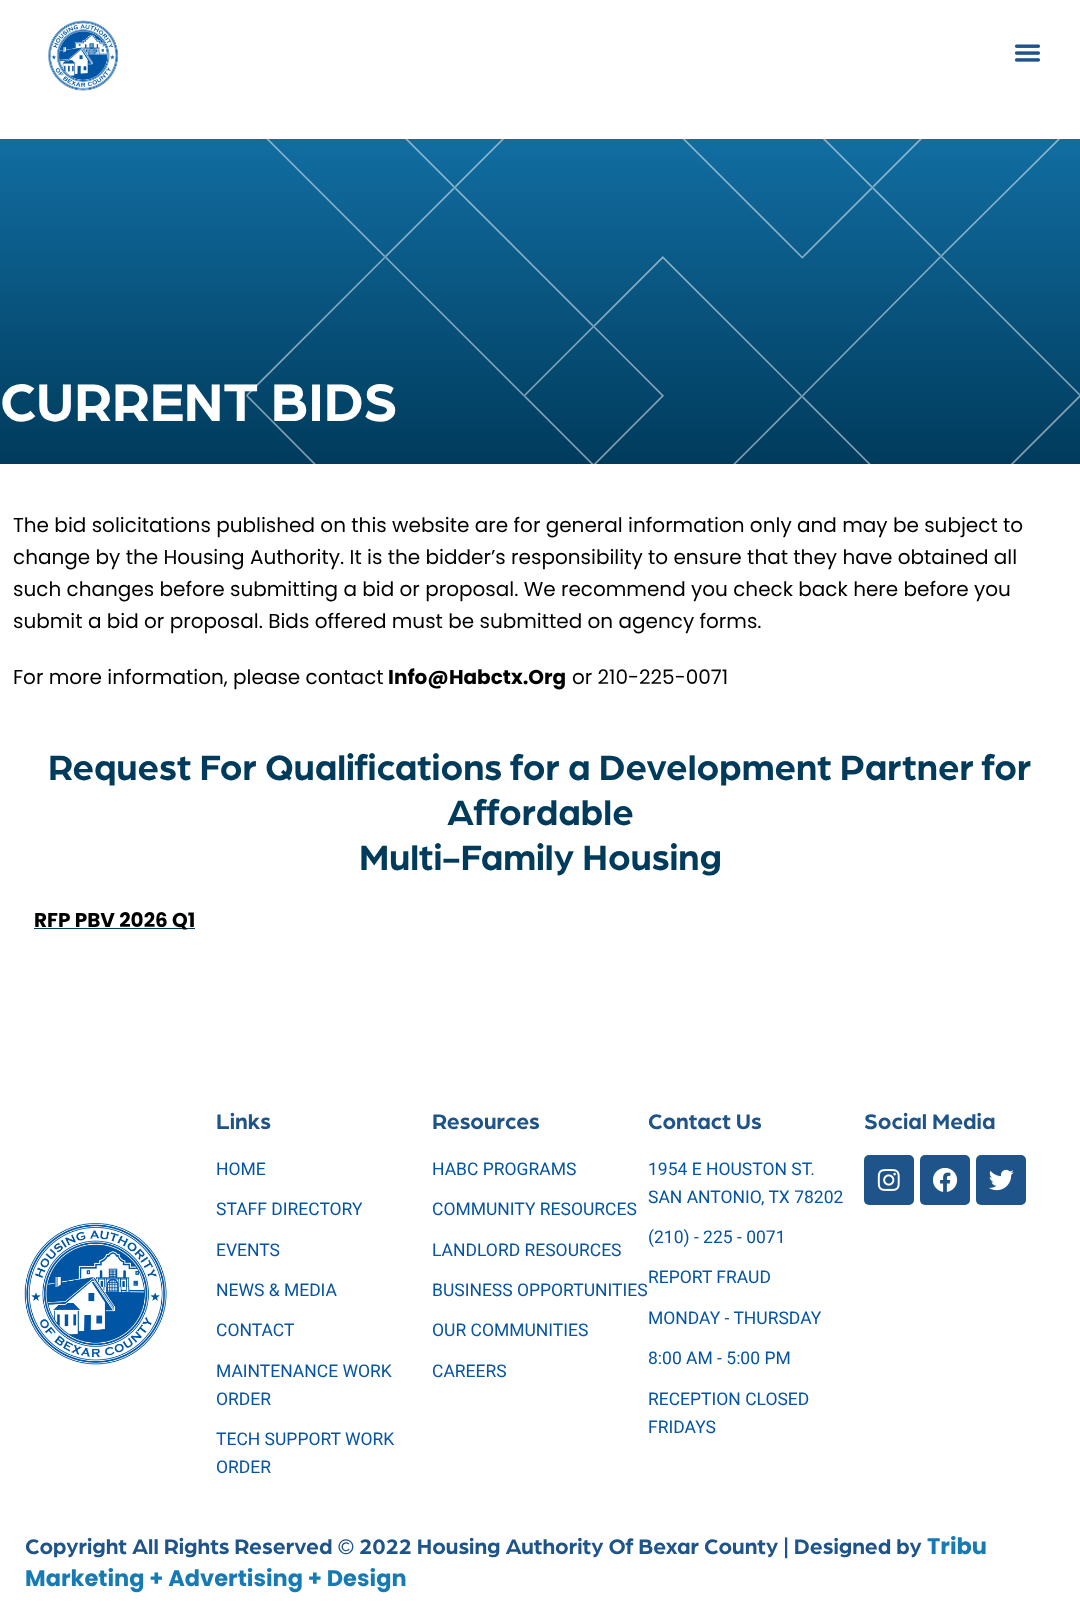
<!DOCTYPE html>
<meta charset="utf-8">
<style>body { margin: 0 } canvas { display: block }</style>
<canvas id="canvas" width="1080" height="1603"></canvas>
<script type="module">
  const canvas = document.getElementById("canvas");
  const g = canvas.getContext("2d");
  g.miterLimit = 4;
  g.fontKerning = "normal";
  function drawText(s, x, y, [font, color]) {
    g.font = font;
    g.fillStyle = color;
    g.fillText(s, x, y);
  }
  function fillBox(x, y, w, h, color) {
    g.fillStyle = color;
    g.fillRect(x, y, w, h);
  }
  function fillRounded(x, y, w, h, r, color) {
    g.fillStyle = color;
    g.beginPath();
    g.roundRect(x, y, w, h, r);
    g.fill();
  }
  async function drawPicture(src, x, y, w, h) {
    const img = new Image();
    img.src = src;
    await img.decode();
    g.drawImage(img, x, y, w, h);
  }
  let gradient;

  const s1 = ["bold 56.25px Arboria", "#FFFFFF"];
  const s2 = ["20px Poppins", "#000000"];
  const s3 = ["bold 20px Poppins", "#000000"];
  const s4 = ["bold 37.5px Arboria", "#003B5C"];
  const s5 = ["bold 22.5px Arboria", "#1E548A"];
  const s6 = ["17.5px Roboto", "#0654A2"];
  const s7 = ["bold 22.5px Poppins", "#167BB4"];

  fillBox(0, 0, 1080, 1603, "#FFFFFF");
  await drawPicture("pic1.png", 48, 20, 71, 71);
  await drawPicture("pic2.png", 1014, 44, 27, 18);
  gradient = g.createLinearGradient(540, 51, 540, 464);
  gradient.addColorStop(0, "#167BB4");
  gradient.addColorStop(1, "#003B5C");
  g.fillStyle = gradient;
  g.fillRect(0, 139, 1080, 325);
  await drawPicture("pic3.png", 246, 139, 834, 325);
  drawText("CURRENT BIDS", 0, 421, s1);
  drawText("The bid solicitations published on this website are for general information only and may be subject to", 13, 532, s2);
  drawText("change by the Housing Authority. It is the bidder’s responsibility to ensure that they have obtained all", 13, 564, s2);
  drawText("such changes before submitting a bid or proposal. We recommend you check back here before you", 13, 596, s2);
  drawText("submit a bid or proposal. Bids offered must be submitted on agency forms.", 13, 628, s2);
  drawText("For more information, please contact", 13, 684, s2);
  drawText("Info@Habctx.Org", 388, 684, s3);
  drawText("or 210-225-0071", 572, 684, s2);
  drawText("Request For Qualifications for a Development Partner for", 48, 780, s4);
  drawText("Affordable", 447, 825, s4);
  drawText("Multi-Family Housing", 359, 870, s4);
  fillBox(34, 928, 161, 1, "#003B5C");
  drawText("RFP PBV 2026 Q1", 34, 927, s3);
  await drawPicture("pic4.png", 24, 1223, 143, 142);
  drawText("Links", 216, 1129, s5);
  drawText("HOME", 216, 1175, s6);
  drawText("STAFF DIRECTORY", 216, 1215, s6);
  drawText("EVENTS", 216, 1256, s6);
  drawText("NEWS & MEDIA", 216, 1296, s6);
  drawText("CONTACT", 216, 1336, s6);
  drawText("MAINTENANCE WORK", 216, 1377, s6);
  drawText("ORDER", 216, 1405, s6);
  drawText("TECH SUPPORT WORK", 216, 1445, s6);
  drawText("ORDER", 216, 1473, s6);
  drawText("Resources", 432, 1129, s5);
  drawText("HABC PROGRAMS", 432, 1175, s6);
  drawText("COMMUNITY RESOURCES", 432, 1215, s6);
  drawText("LANDLORD RESOURCES", 432, 1256, s6);
  drawText("BUSINESS OPPORTUNITIES", 432, 1296, s6);
  drawText("OUR COMMUNITIES", 432, 1336, s6);
  drawText("CAREERS", 432, 1377, s6);
  drawText("Contact Us", 648, 1129, s5);
  drawText("1954 E HOUSTON ST.", 648, 1175, s6);
  drawText("SAN ANTONIO, TX 78202", 648, 1203, s6);
  drawText("(210) - 225 - 0071", 648, 1243, s6);
  drawText("REPORT FRAUD", 648, 1283, s6);
  drawText("MONDAY - THURSDAY", 648, 1324, s6);
  drawText("8:00 AM - 5:00 PM", 648, 1364, s6);
  drawText("RECEPTION CLOSED", 648, 1405, s6);
  drawText("FRIDAYS", 648, 1433, s6);
  drawText("Social Media", 864, 1129, s5);
  fillRounded(864, 1155, 50, 50, 5, "#1E548A");
  await drawPicture("pic5.png", 877, 1169, 23, 22);
  fillRounded(920, 1155, 50, 50, 5, "#1E548A");
  await drawPicture("pic6.png", 933, 1168, 25, 24);
  fillRounded(976, 1155, 50, 50, 5, "#1E548A");
  await drawPicture("pic7.png", 989, 1169, 25, 22);
  drawText("Copyright All Rights Reserved © 2022 Housing Authority Of Bexar County | Designed by", 25, 1554, s5);
  drawText("Tribu", 927, 1554, s7);
  drawText("Marketing + Advertising + Design", 25, 1586, s7);
</script>
